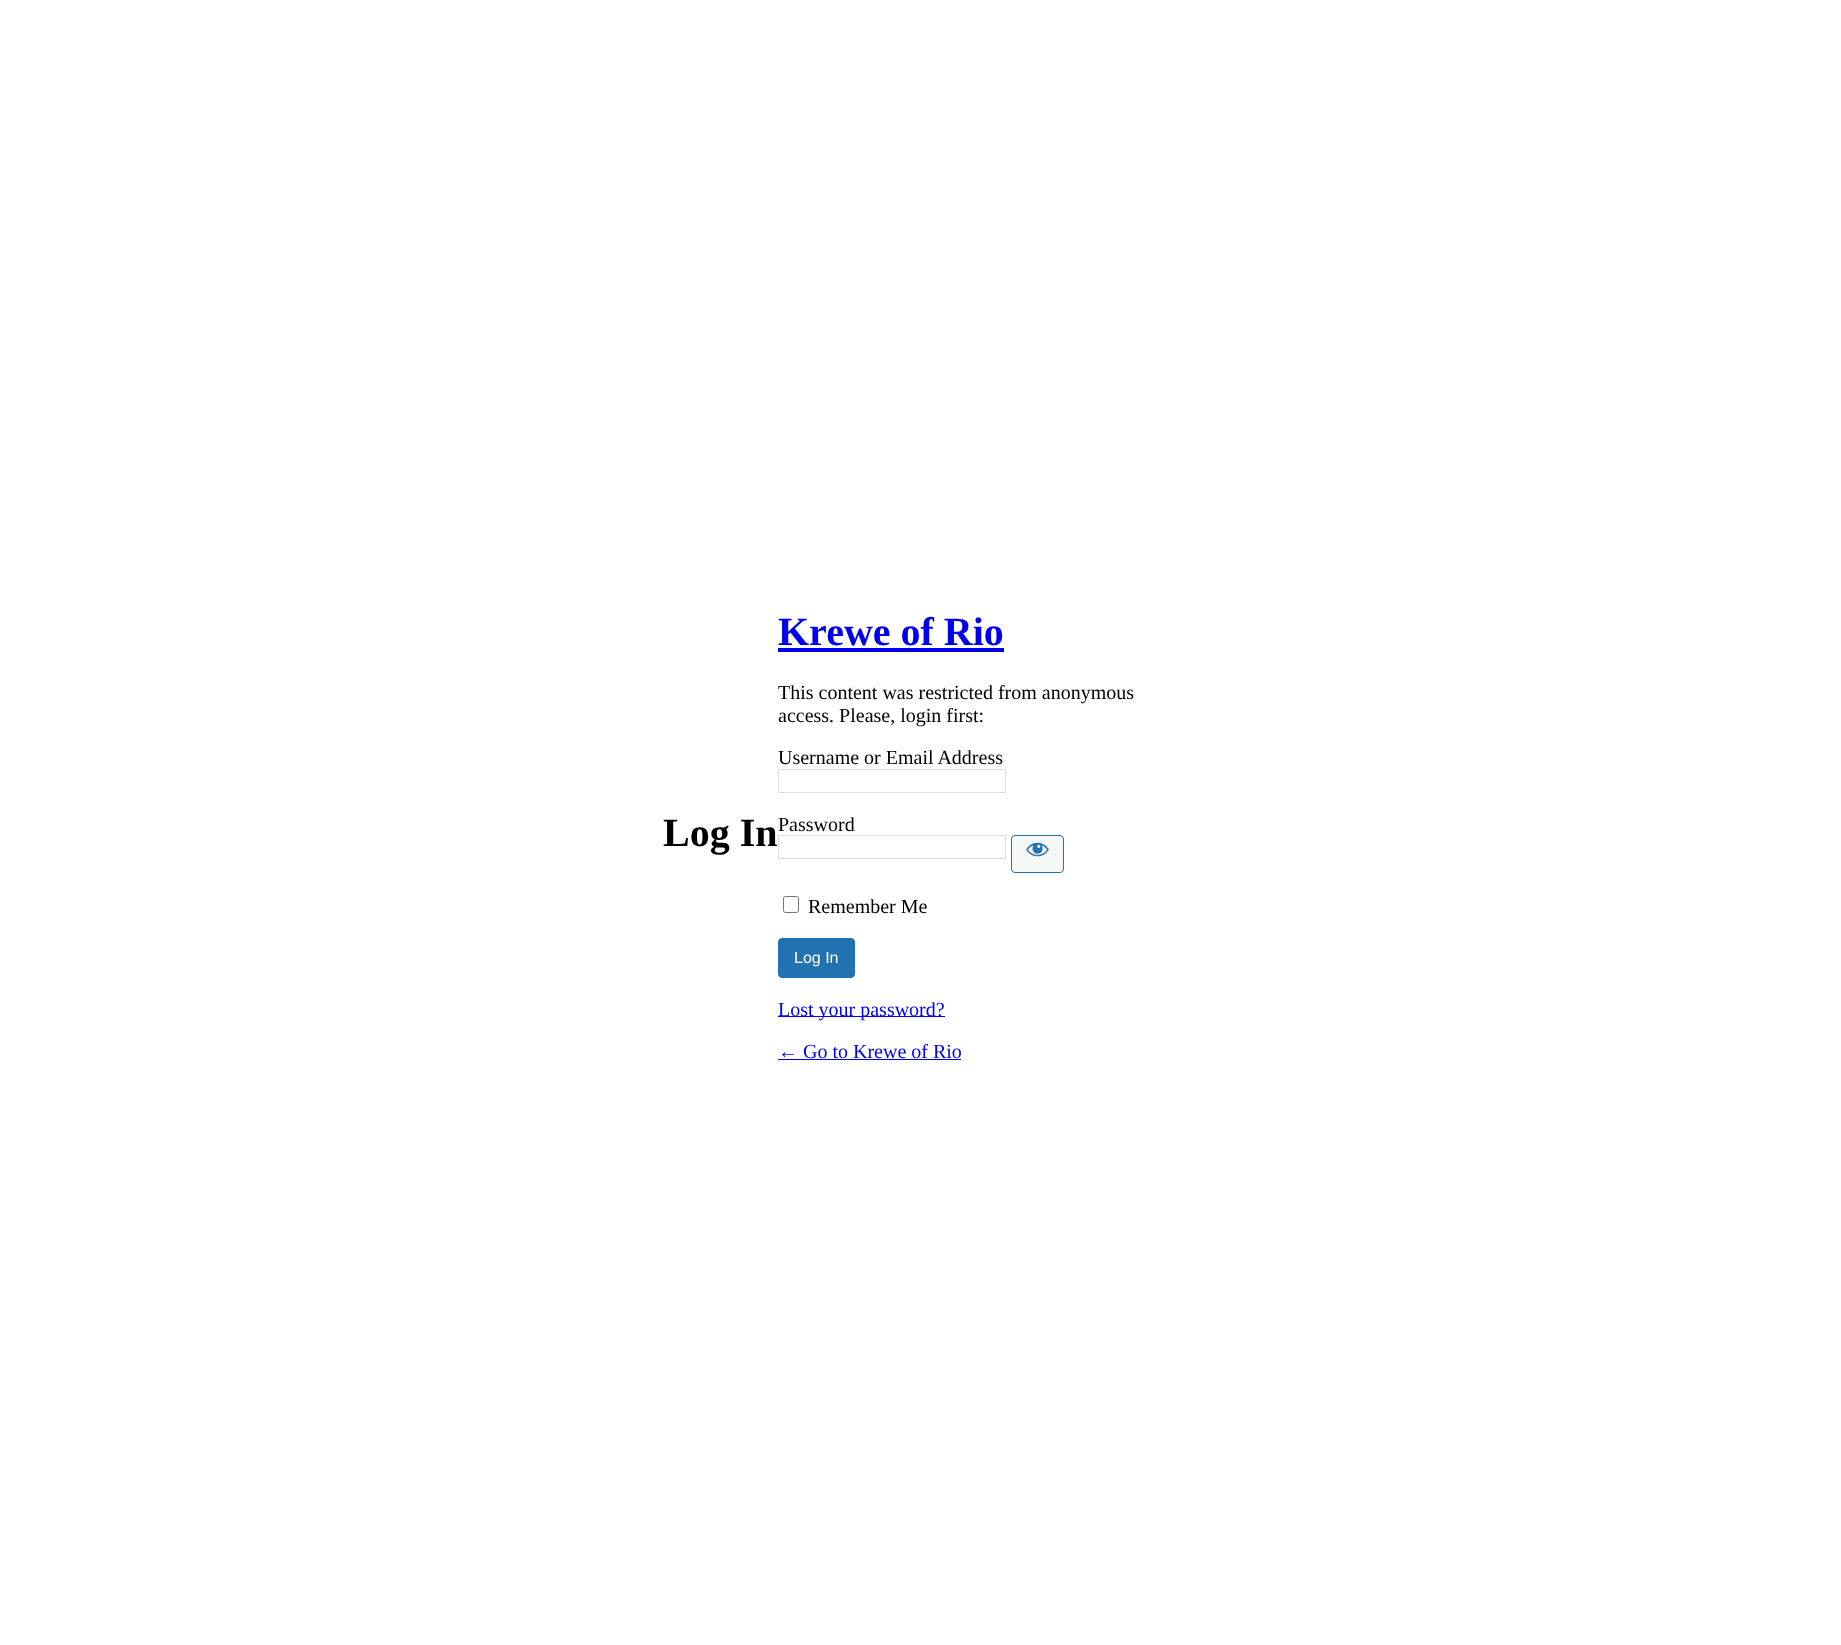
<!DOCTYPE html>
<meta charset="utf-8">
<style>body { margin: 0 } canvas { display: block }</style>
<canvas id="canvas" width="1841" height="1645"></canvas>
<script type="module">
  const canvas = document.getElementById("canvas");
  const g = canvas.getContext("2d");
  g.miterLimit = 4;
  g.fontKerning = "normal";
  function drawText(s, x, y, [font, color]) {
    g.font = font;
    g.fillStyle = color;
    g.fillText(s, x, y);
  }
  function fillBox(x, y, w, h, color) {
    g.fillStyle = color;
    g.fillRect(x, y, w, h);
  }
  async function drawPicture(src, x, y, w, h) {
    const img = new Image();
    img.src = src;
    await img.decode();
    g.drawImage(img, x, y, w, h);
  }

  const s1 = ["bold 40px Liberation Serif", "#000000"];
  const s2 = ["bold 40px Liberation Serif", "#0000EE"];
  const s3 = ["20px Liberation Serif", "#000000"];
  const s4 = ["16px Liberation Sans", "#FFFFFF"];
  const s5 = ["20px Liberation Serif", "#0000EE"];

  fillBox(0, 0, 1841, 1645, "#FFFFFF");
  drawText("Log In", 663, 846, s1);
  drawText("Krewe of Rio", 778, 645, s2);
  fillBox(778, 648, 226, 4, "#0000EE");
  drawText("This content was restricted from anonymous", 778, 699, s3);
  drawText("access. Please, login first:", 778, 722, s3);
  drawText("Username or Email Address", 778, 764, s3);
  g.strokeStyle = "#DDDDDD";
  g.strokeRect(778.5, 769.5, 227, 23);
  drawText("Password", 778, 831, s3);
  g.strokeRect(778.5, 835.5, 227, 23);
  g.fillStyle = "#F6F7F7";
  g.beginPath();
  g.roundRect(1011.5, 835.5, 52, 37, 3.5);
  g.fill();
  g.strokeStyle = "#2271B1";
  g.stroke();
  await drawPicture("pic1.png", 1026, 842, 23, 15);
  g.beginPath();
  g.roundRect(783.5, 896.5, 15, 16, 2);
  g.strokeStyle = "#767676";
  g.stroke();
  drawText("Remember Me", 808, 913, s3);
  g.fillStyle = "#2271B1";
  g.beginPath();
  g.roundRect(778.5, 938.5, 76, 39, 3.5);
  g.fill();
  g.strokeStyle = "#2271B1";
  g.stroke();
  drawText("Log In", 794, 963, s4);
  fillBox(778, 1016, 167, 1, "#0000EE");
  drawText("Lost your password?", 778, 1016, s5);
  drawText("← Go to Krewe of Rio", 778, 1058, s5);
  fillBox(778, 1059, 183, 1, "#0000EE");
</script>
